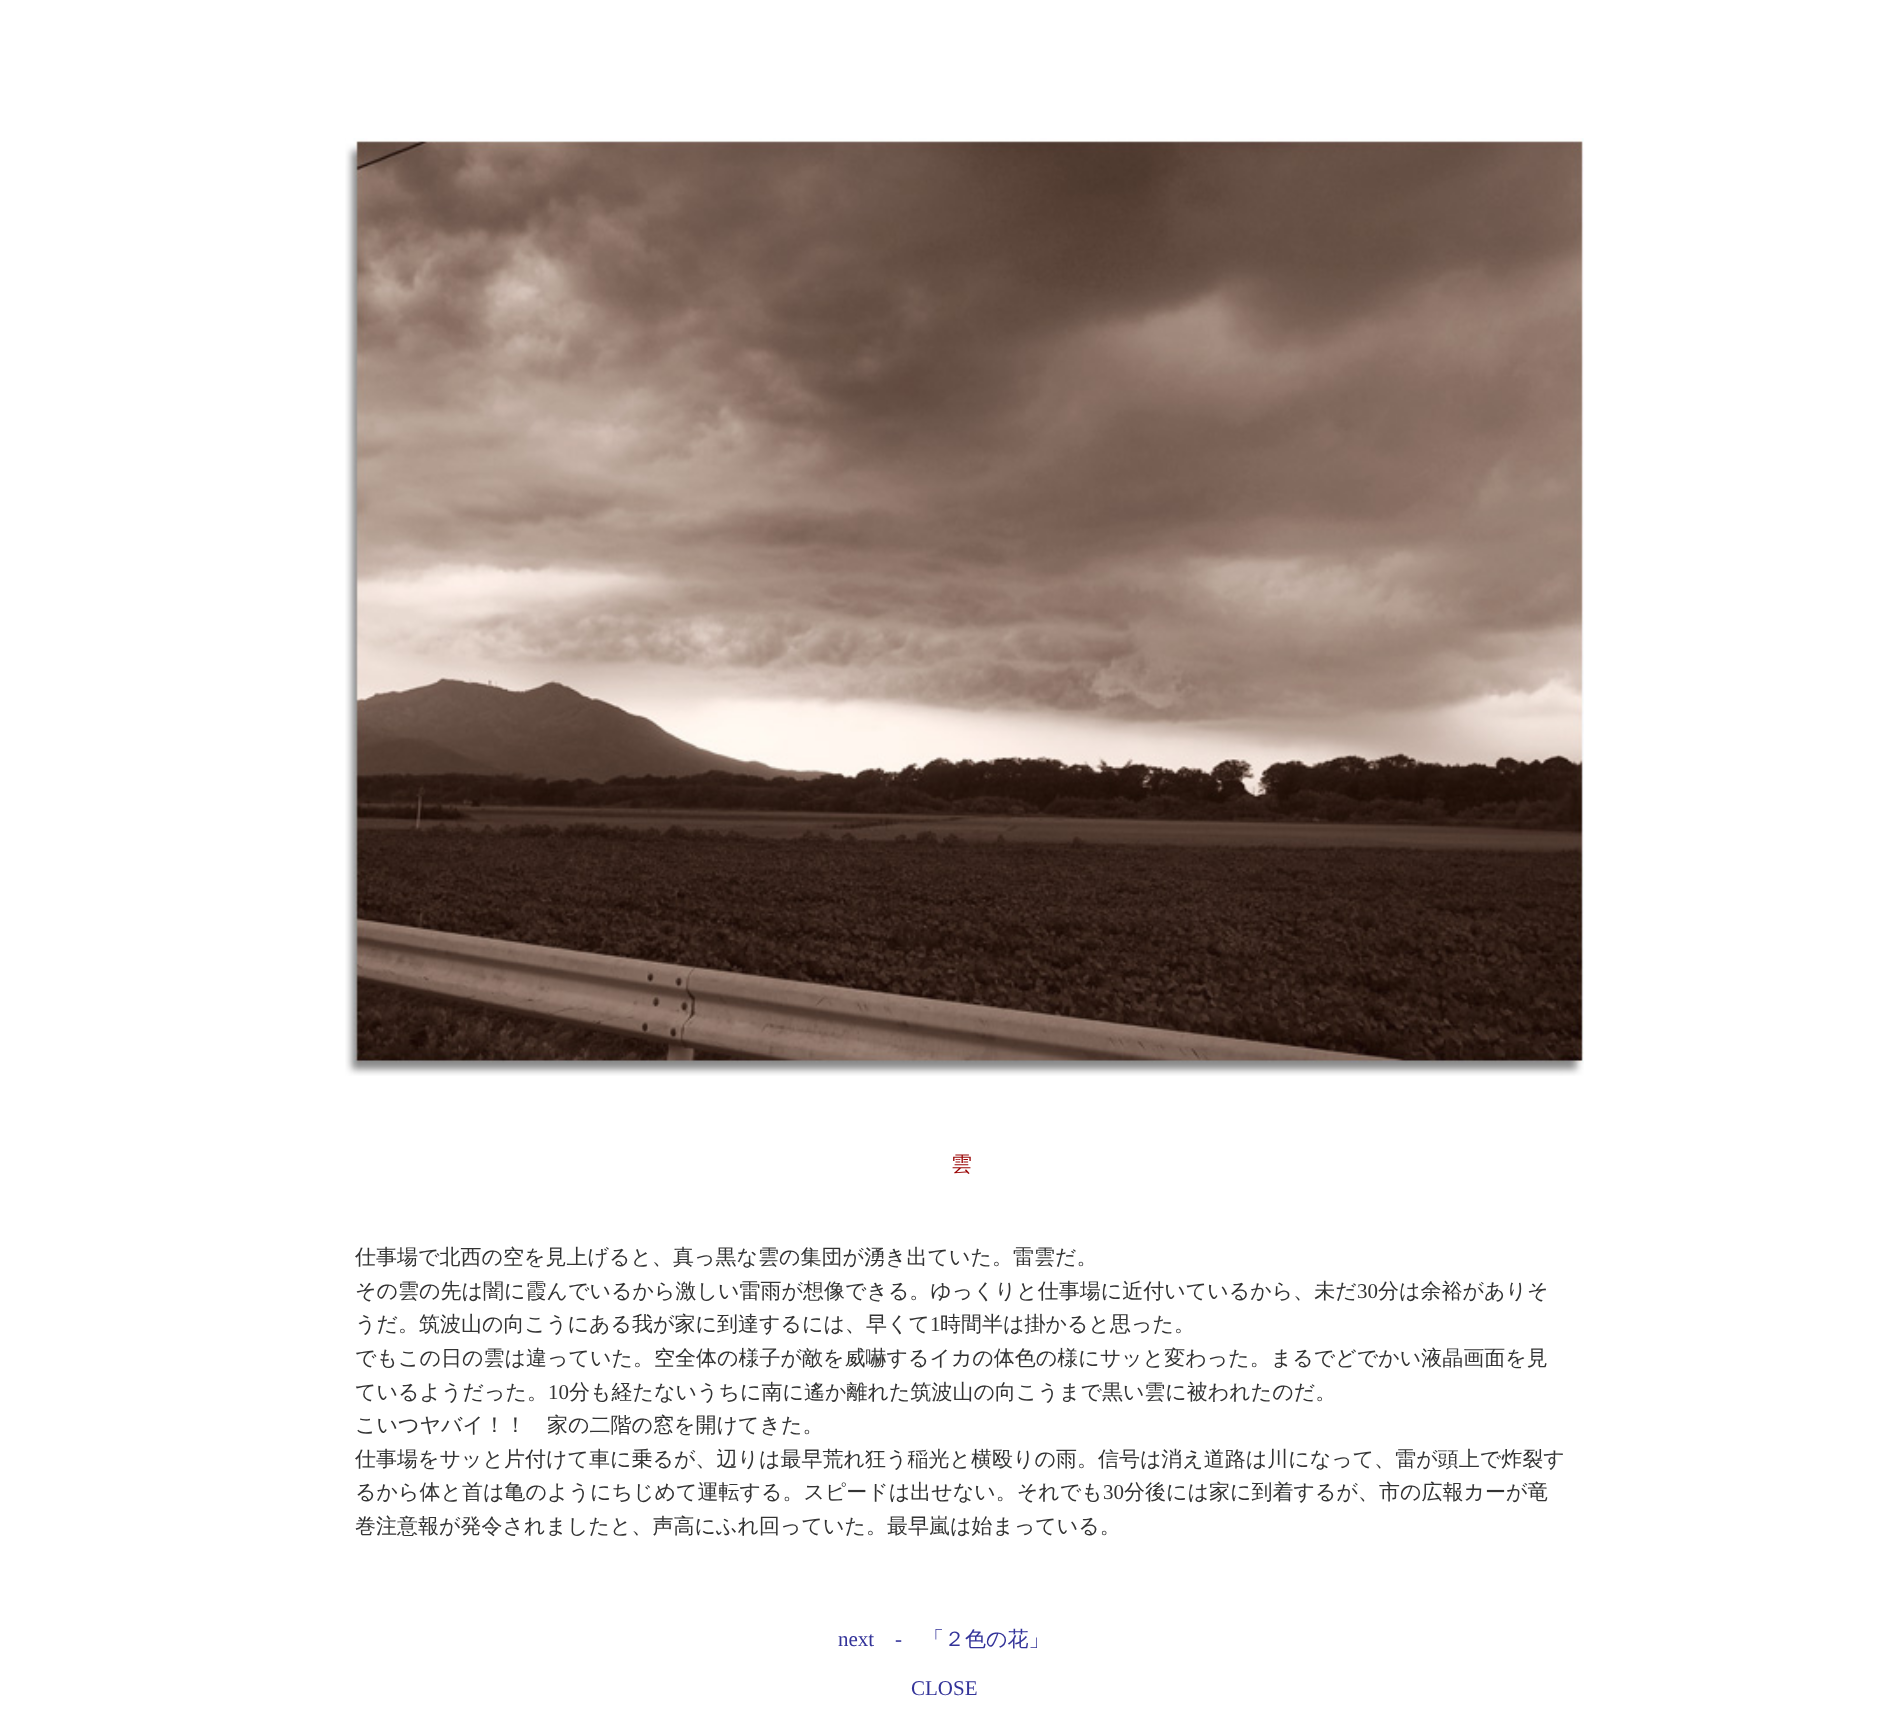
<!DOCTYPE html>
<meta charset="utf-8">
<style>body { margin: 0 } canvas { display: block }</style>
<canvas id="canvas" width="1888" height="1727"></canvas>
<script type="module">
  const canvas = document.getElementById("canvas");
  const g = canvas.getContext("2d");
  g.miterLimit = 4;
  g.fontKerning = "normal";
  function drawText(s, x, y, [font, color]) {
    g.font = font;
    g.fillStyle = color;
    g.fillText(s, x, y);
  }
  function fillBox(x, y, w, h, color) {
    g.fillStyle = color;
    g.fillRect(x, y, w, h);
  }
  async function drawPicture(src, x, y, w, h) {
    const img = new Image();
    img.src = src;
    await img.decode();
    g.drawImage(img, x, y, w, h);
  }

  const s1 = ["500 21px WenQuanYi Zen Hei", "#990000"];
  const s2 = ["500 21px WenQuanYi Zen Hei", "#333333"];
  const s3 = ["21px Liberation Serif", "#333333"];
  const s4 = ["21px Liberation Serif", "#333399"];
  const s5 = ["500 21px WenQuanYi Zen Hei", "#333399"];

  fillBox(0, 0, 1888, 1727, "#FFFFFF");
  await drawPicture("pic1.png", 345, 138, 1239, 938);
  drawText("雲", 951, 1171, s1);
  drawText("仕事場で北西の空を見上げると、真っ黒な雲の集団が湧き出ていた。雷雲だ。", 355, 1264, s2);
  drawText("その雲の先は闇に霞んでいるから激しい雷雨が想像できる。ゆっくりと仕事場に近付いているから、未だ", 355, 1298, s2);
  drawText("30", 1357, 1298, s3);
  drawText("分は余裕がありそ", 1378, 1298, s2);
  drawText("うだ。筑波山の向こうにある我が家に到達するには、早くて", 355, 1331, s2);
  drawText("1", 930, 1331, s3);
  drawText("時間半は掛かると思った。", 940, 1331, s2);
  drawText("でもこの日の雲は違っていた。空全体の様子が敵を威嚇するイカの体色の様にサッと変わった。まるでどでかい液晶画面を見", 355, 1365, s2);
  drawText("ているようだった。", 355, 1399, s2);
  drawText("10", 548, 1399, s3);
  drawText("分も経たないうちに南に遙か離れた筑波山の向こうまで黒い雲に被われたのだ。", 569, 1399, s2);
  drawText("こいつヤバイ！！　家の二階の窓を開けてきた。", 355, 1432, s2);
  drawText("仕事場をサッと片付けて車に乗るが、辺りは最早荒れ狂う稲光と横殴りの雨。信号は消え道路は川になって、雷が頭上で炸裂す", 355, 1466, s2);
  drawText("るから体と首は亀のようにちじめて運転する。スピードは出せない。それでも", 355, 1499, s2);
  drawText("30", 1103, 1499, s3);
  drawText("分後には家に到着するが、市の広報カーが竜", 1124, 1499, s2);
  drawText("巻注意報が発令されましたと、声高にふれ回っていた。最早嵐は始まっている。", 355, 1533, s2);
  drawText("next", 838, 1646, s4);
  drawText("-", 895, 1646, s4);
  drawText("「２色の花」", 923, 1646, s5);
  drawText("CLOSE", 911, 1695, s4);
</script>
